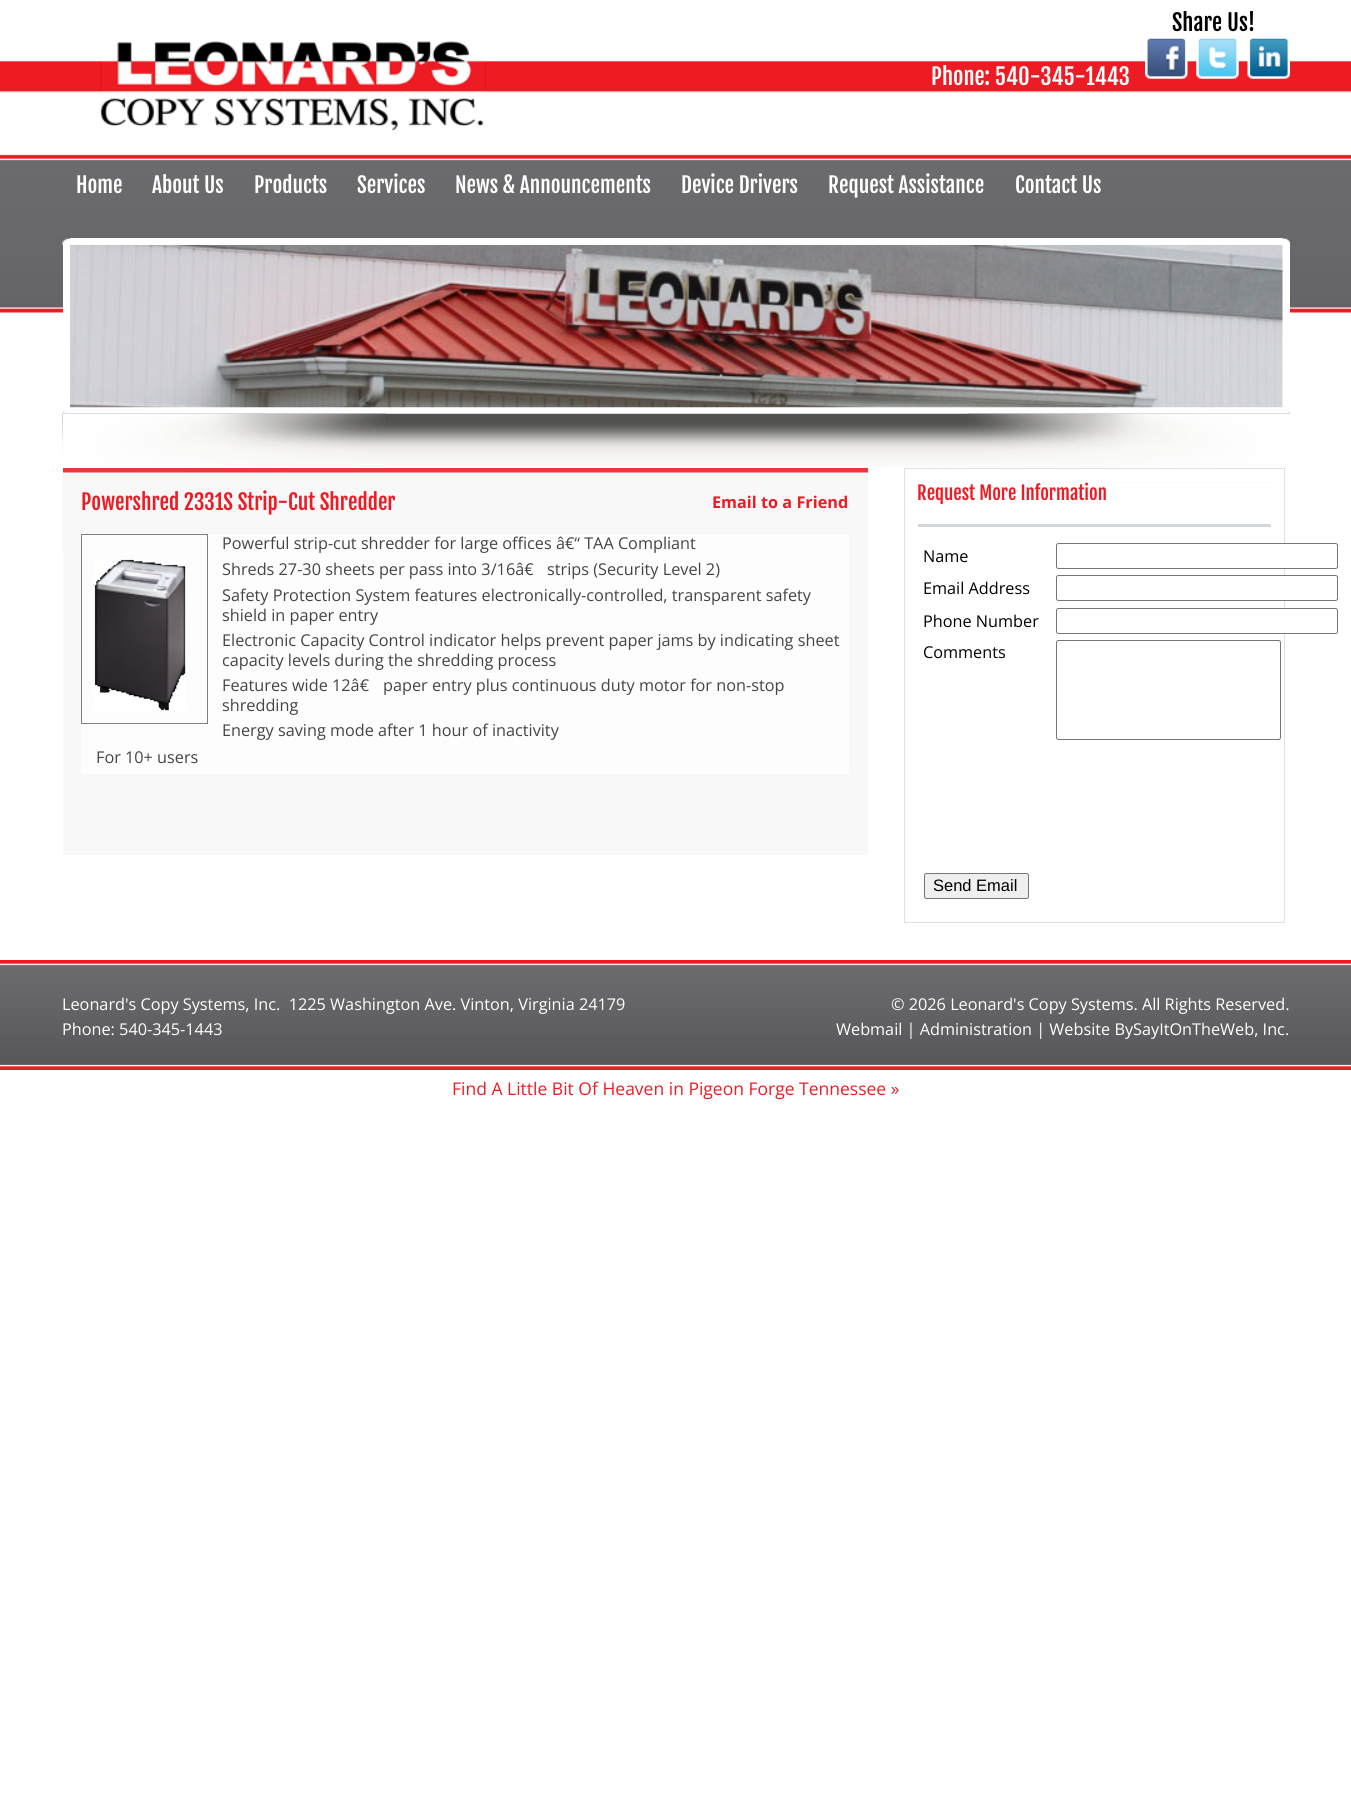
#include <cairo.h>
#include <math.h>
#include <stddef.h>

typedef struct { double x, y; const char *s; } line_t;

static void ink(cairo_t *ctx, unsigned color) {
    cairo_set_source_rgb(ctx, (color >> 16) / 255.0, (color >> 8 & 255) / 255.0, (color & 255) / 255.0);
}

static void round_path(cairo_t *ctx, double x, double y, double w, double h, double r) {
    cairo_new_sub_path(ctx);
    cairo_arc(ctx, x + w - r, y + h - r, r, 0, M_PI / 2);
    cairo_arc(ctx, x + r, y + h - r, r, M_PI / 2, M_PI);
    cairo_arc(ctx, x + r, y + r, r, M_PI, 1.5 * M_PI);
    cairo_arc(ctx, x + w - r, y + r, r, 1.5 * M_PI, 2 * M_PI);
    cairo_close_path(ctx);
}

static void paste(cairo_t *ctx, const char *path, double x, double y, double w, double h) {
    cairo_surface_t *image = cairo_image_surface_create_from_png(path);
    cairo_save(ctx);
    cairo_set_source_surface(ctx, image, x, y);
    cairo_rectangle(ctx, x, y, w, h);
    cairo_fill(ctx);
    cairo_restore(ctx);
    cairo_surface_destroy(image);
}

int main(void) {
    cairo_surface_t *surface = cairo_image_surface_create(CAIRO_FORMAT_RGB24, 1351, 1804);
    cairo_t *ctx = cairo_create(surface);
    cairo_font_options_t *options = cairo_font_options_create();
    cairo_font_options_set_hint_metrics(options, CAIRO_HINT_METRICS_OFF);
    cairo_font_options_set_hint_style(options, CAIRO_HINT_STYLE_NONE);
    cairo_set_font_options(ctx, options);
    cairo_set_miter_limit(ctx, 4);
    ink(ctx, 0xFFFFFF);
    cairo_paint(ctx);
    paste(ctx, "media/1.png", 0, 61, 1351, 252);
    cairo_select_font_face(ctx, "Fjalla One", CAIRO_FONT_SLANT_NORMAL, CAIRO_FONT_WEIGHT_NORMAL);
    cairo_set_font_size(ctx, 22.5);
    ink(ctx, 0x000000);
    cairo_move_to(ctx, 1172, 31);
    cairo_show_text(ctx, "Share Us!");
    paste(ctx, "media/2.png", 1145, 38, 43, 41);
    paste(ctx, "media/3.png", 1196, 38, 43, 41);
    paste(ctx, "media/4.png", 1247, 38, 43, 41);
    paste(ctx, "media/5.png", 100, 41, 387, 90);
    ink(ctx, 0xFFFFFF);
    cairo_move_to(ctx, 931, 85);
    cairo_show_text(ctx, "Phone: 540-345-1443");
    cairo_set_font_size(ctx, 21.25);
    {
        static const line_t items[] = {
            {76, 193, "Home"},
            {152, 193, "About Us"},
            {254, 193, "Products"},
            {357, 193, "Services"},
            {455, 193, "News & Announcements"},
            {681, 193, "Device Drivers"},
            {828, 193, "Request Assistance"},
            {1015, 193, "Contact Us"},
        };
        for (size_t i = 0; i < sizeof items / sizeof *items; i++) {
            cairo_move_to(ctx, items[i].x, items[i].y);
            cairo_show_text(ctx, items[i].s);
        }
    }
    paste(ctx, "media/6.png", 62, 238, 8, 7);
    paste(ctx, "media/7.png", 1283, 238, 7, 7);
    cairo_rectangle(ctx, 70, 238, 1213, 7);
    cairo_fill(ctx);
    cairo_rectangle(ctx, 63, 245, 1227, 68);
    cairo_fill(ctx);
    paste(ctx, "media/8.png", 70, 245, 1213, 163);
    paste(ctx, "media/9.png", 62, 410, 5, 4);
    paste(ctx, "media/10.png", 1286, 410, 4, 4);
    paste(ctx, "media/11.png", 62, 413, 1228, 54);
    paste(ctx, "media/12.png", 62, 413, 325, 54);
    paste(ctx, "media/13.png", 967, 413, 323, 54);
    ink(ctx, 0xEC363C);
    cairo_rectangle(ctx, 63, 468, 805, 5);
    cairo_fill(ctx);
    ink(ctx, 0xF8F8F8);
    cairo_rectangle(ctx, 63, 473, 805, 382);
    cairo_fill(ctx);
    paste(ctx, "media/14.png", 62, 472, 806, 81);
    ink(ctx, 0xED1C24);
    cairo_move_to(ctx, 81, 510);
    cairo_show_text(ctx, "Powershred 2331S Strip-Cut Shredder");
    cairo_select_font_face(ctx, "Open Sans", CAIRO_FONT_SLANT_NORMAL, CAIRO_FONT_WEIGHT_BOLD);
    cairo_set_font_size(ctx, 16.25);
    cairo_move_to(ctx, 712, 508);
    cairo_show_text(ctx, "Email to a Friend");
    ink(ctx, 0xFDFDFD);
    cairo_rectangle(ctx, 81, 534, 768, 240);
    cairo_fill(ctx);
    cairo_rectangle(ctx, 81.5, 534.5, 126, 189);
    ink(ctx, 0x7F7F7F);
    cairo_set_line_width(ctx, 1);
    cairo_stroke(ctx);
    paste(ctx, "media/15.png", 94, 559, 92, 152);
    cairo_select_font_face(ctx, "Open Sans", CAIRO_FONT_SLANT_NORMAL, CAIRO_FONT_WEIGHT_NORMAL);
    ink(ctx, 0x444444);
    {
        static const line_t items[] = {
            {222, 549, "Powerful strip-cut shredder for large offices â€“ TAA Compliant"},
            {222, 575, "Shreds 27-30 sheets per pass into 3/16â€"},
            {547, 575, "strips (Security Level 2)"},
            {222, 601, "Safety Protection System features electronically-controlled, transparent safety"},
            {222, 621, "shield in paper entry"},
            {222, 646, "Electronic Capacity Control indicator helps prevent paper jams by indicating sheet"},
            {222, 666, "capacity levels during the shredding process"},
            {222, 691, "Features wide 12â€"},
            {383, 691, "paper entry plus continuous duty motor for non-stop"},
            {222, 711, "shredding"},
            {222, 736, "Energy saving mode after 1 hour of inactivity"},
            {96, 763, "For 10+ users"},
        };
        for (size_t i = 0; i < sizeof items / sizeof *items; i++) {
            cairo_move_to(ctx, items[i].x, items[i].y);
            cairo_show_text(ctx, items[i].s);
        }
    }
    cairo_rectangle(ctx, 904.5, 468.5, 380, 454);
    ink(ctx, 0xDCE0E7);
    cairo_stroke(ctx);
    ink(ctx, 0xFBFBFA);
    cairo_rectangle(ctx, 918, 482, 353, 1);
    cairo_fill(ctx);
    cairo_select_font_face(ctx, "Fjalla One", CAIRO_FONT_SLANT_NORMAL, CAIRO_FONT_WEIGHT_NORMAL);
    cairo_set_font_size(ctx, 18.75);
    ink(ctx, 0xED1C24);
    cairo_move_to(ctx, 917, 500);
    cairo_show_text(ctx, "Request More Information");
    ink(ctx, 0xD3D6DA);
    cairo_rectangle(ctx, 918, 524, 353, 3);
    cairo_fill(ctx);
    cairo_select_font_face(ctx, "Open Sans", CAIRO_FONT_SLANT_NORMAL, CAIRO_FONT_WEIGHT_NORMAL);
    cairo_set_font_size(ctx, 16.25);
    ink(ctx, 0x000000);
    cairo_move_to(ctx, 923, 562);
    cairo_show_text(ctx, "Name");
    ink(ctx, 0xFFFFFF);
    round_path(ctx, 1056.5, 543.5, 281, 25, 2);
    cairo_fill_preserve(ctx);
    ink(ctx, 0x767676);
    cairo_stroke(ctx);
    ink(ctx, 0x000000);
    cairo_move_to(ctx, 923, 594);
    cairo_show_text(ctx, "Email Address");
    ink(ctx, 0xFFFFFF);
    round_path(ctx, 1056.5, 575.5, 281, 25, 2);
    cairo_fill_preserve(ctx);
    ink(ctx, 0x767676);
    cairo_stroke(ctx);
    ink(ctx, 0x000000);
    cairo_move_to(ctx, 923, 627);
    cairo_show_text(ctx, "Phone Number");
    ink(ctx, 0xFFFFFF);
    round_path(ctx, 1056.5, 608.5, 281, 25, 2);
    cairo_fill_preserve(ctx);
    ink(ctx, 0x767676);
    cairo_stroke(ctx);
    ink(ctx, 0x000000);
    cairo_move_to(ctx, 923, 658);
    cairo_show_text(ctx, "Comments");
    round_path(ctx, 1056.5, 640.5, 224, 99, 2);
    ink(ctx, 0x767676);
    cairo_stroke(ctx);
    ink(ctx, 0xEFEFEF);
    round_path(ctx, 924.5, 873.5, 104, 25, 2);
    cairo_fill_preserve(ctx);
    ink(ctx, 0x767676);
    cairo_stroke(ctx);
    cairo_select_font_face(ctx, "Liberation Sans", CAIRO_FONT_SLANT_NORMAL, CAIRO_FONT_WEIGHT_NORMAL);
    cairo_set_font_size(ctx, 16.5);
    ink(ctx, 0x000000);
    cairo_move_to(ctx, 933, 891);
    cairo_show_text(ctx, "Send Email");
    paste(ctx, "media/16.png", 0, 960, 1351, 110);
    cairo_select_font_face(ctx, "Open Sans", CAIRO_FONT_SLANT_NORMAL, CAIRO_FONT_WEIGHT_NORMAL);
    cairo_set_font_size(ctx, 16.25);
    ink(ctx, 0xFFFFFF);
    {
        static const line_t items[] = {
            {62, 1010, "Leonard's Copy Systems, Inc.  1225 Washington Ave. Vinton, Virginia 24179"},
            {62, 1035, "Phone: 540-345-1443"},
            {891, 1010, "© 2026 Leonard's Copy Systems. All Rights Reserved."},
            {836, 1035, "Webmail | Administration | Website BySayItOnTheWeb, Inc."},
        };
        for (size_t i = 0; i < sizeof items / sizeof *items; i++) {
            cairo_move_to(ctx, items[i].x, items[i].y);
            cairo_show_text(ctx, items[i].s);
        }
    }
    cairo_set_font_size(ctx, 17.5);
    ink(ctx, 0xED1C24);
    cairo_move_to(ctx, 452, 1095);
    cairo_show_text(ctx, "Find A Little Bit Of Heaven in Pigeon Forge Tennessee »");
    cairo_surface_write_to_png(surface, "image.png");
    cairo_font_options_destroy(options);
    cairo_destroy(ctx);
    cairo_surface_destroy(surface);
    return 0;
}
